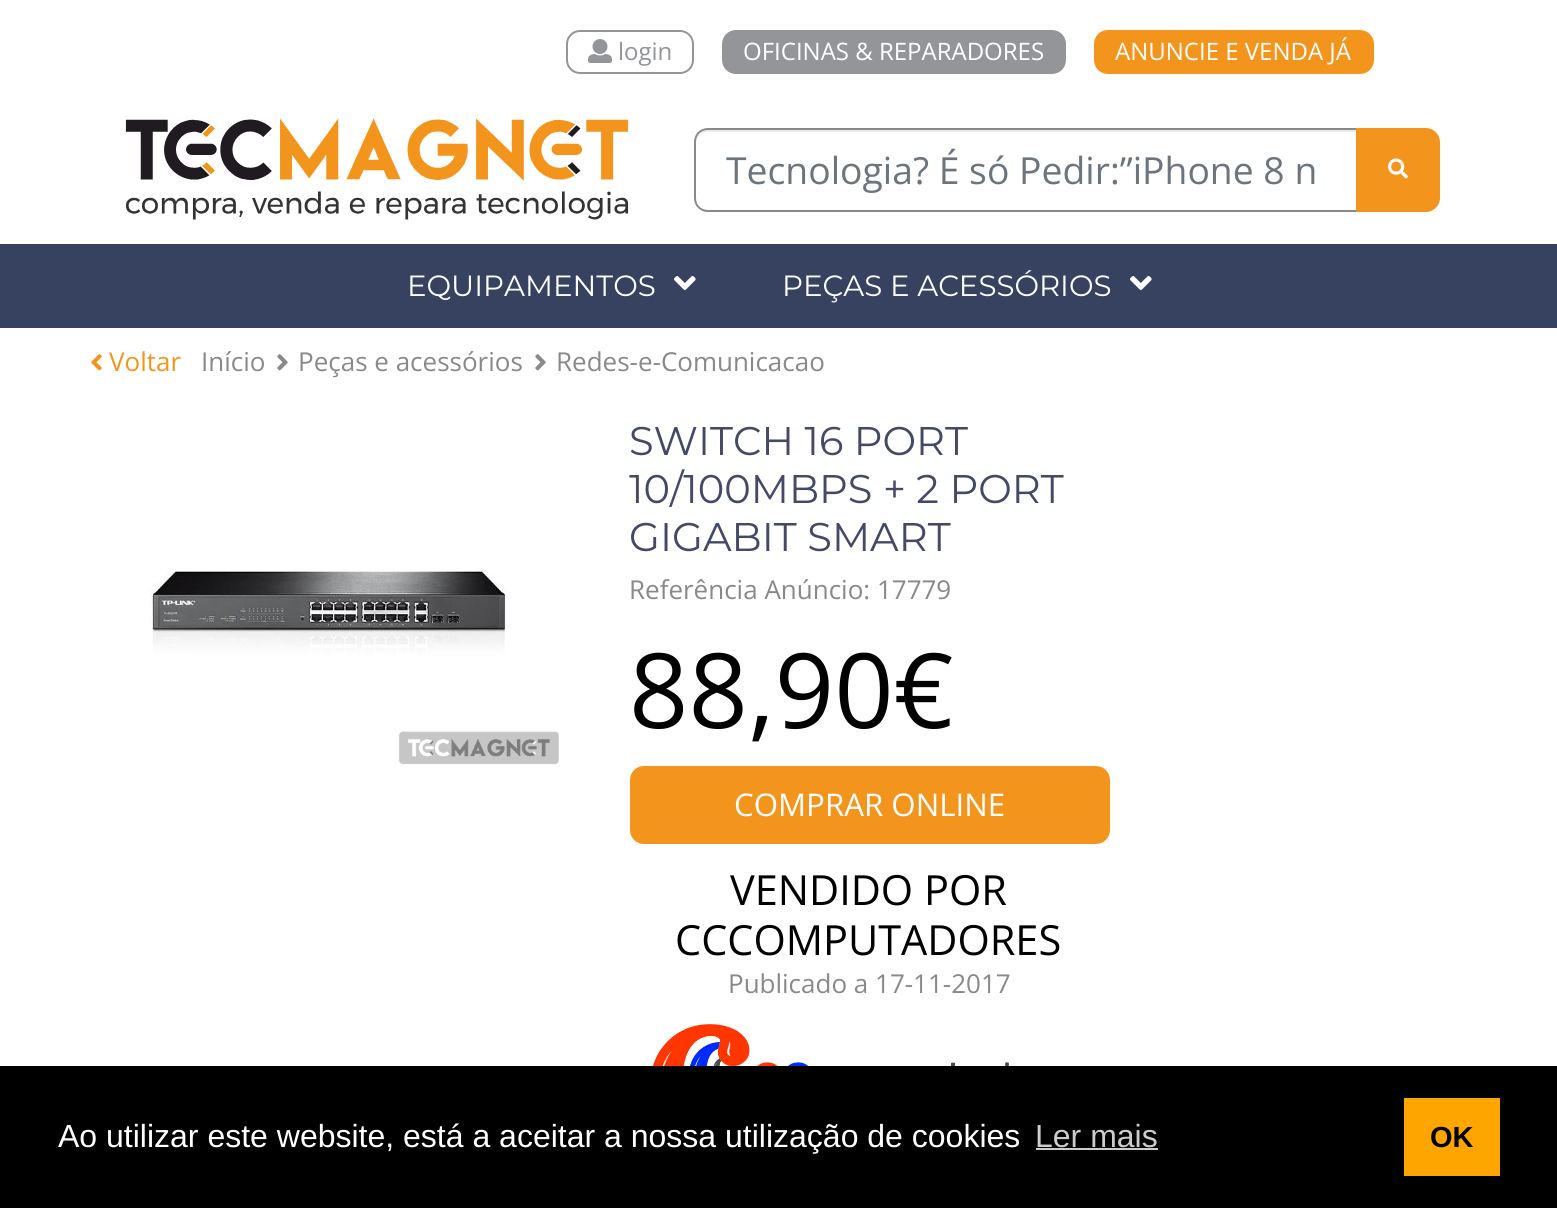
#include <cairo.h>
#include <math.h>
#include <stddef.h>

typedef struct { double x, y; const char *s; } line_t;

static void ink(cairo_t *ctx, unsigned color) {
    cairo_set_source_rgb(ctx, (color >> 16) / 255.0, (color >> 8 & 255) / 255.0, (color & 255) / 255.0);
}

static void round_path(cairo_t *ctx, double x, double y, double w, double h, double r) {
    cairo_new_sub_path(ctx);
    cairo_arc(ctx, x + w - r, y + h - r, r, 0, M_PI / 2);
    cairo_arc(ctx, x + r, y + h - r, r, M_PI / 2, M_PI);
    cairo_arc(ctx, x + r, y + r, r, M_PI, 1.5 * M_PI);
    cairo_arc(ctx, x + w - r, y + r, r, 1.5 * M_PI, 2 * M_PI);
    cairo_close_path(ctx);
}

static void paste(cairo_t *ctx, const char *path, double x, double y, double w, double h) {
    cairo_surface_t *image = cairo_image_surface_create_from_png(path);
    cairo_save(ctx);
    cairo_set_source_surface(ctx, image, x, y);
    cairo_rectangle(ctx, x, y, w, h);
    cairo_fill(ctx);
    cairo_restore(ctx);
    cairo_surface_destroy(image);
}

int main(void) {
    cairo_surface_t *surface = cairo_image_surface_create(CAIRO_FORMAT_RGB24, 1557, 1208);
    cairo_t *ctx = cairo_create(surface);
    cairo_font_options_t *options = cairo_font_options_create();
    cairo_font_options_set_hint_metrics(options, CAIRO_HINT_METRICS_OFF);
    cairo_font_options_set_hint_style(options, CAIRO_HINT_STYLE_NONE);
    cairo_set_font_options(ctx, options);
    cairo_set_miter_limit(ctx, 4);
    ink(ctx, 0xFFFFFF);
    cairo_paint(ctx);
    round_path(ctx, 567, 31, 126, 42, 13);
    ink(ctx, 0x939598);
    cairo_stroke(ctx);
    paste(ctx, "media/1.png", 588, 39, 24, 24);
    cairo_select_font_face(ctx, "Open Sans", CAIRO_FONT_SLANT_NORMAL, CAIRO_FONT_WEIGHT_NORMAL);
    cairo_set_font_size(ctx, 24);
    cairo_move_to(ctx, 618, 60);
    cairo_show_text(ctx, "login");
    round_path(ctx, 723, 31, 342, 42, 13);
    cairo_fill_preserve(ctx);
    cairo_stroke(ctx);
    ink(ctx, 0xFFFFFF);
    cairo_move_to(ctx, 743, 60);
    cairo_show_text(ctx, "OFICINAS & REPARADORES");
    ink(ctx, 0xF3951D);
    round_path(ctx, 1095, 31, 278, 42, 13);
    cairo_fill_preserve(ctx);
    cairo_stroke(ctx);
    ink(ctx, 0xFFFFFF);
    cairo_move_to(ctx, 1115, 60);
    cairo_show_text(ctx, "ANUNCIE E VENDA JÁ");
    paste(ctx, "media/2.png", 125, 118, 504, 102);
    ink(ctx, 0xECECEC);
    cairo_new_path(ctx);
    cairo_move_to(ctx, 708, 132);
    cairo_line_to(ctx, 1356, 132);
    cairo_line_to(ctx, 1356, 130);
    cairo_line_to(ctx, 708, 130);
    cairo_curve_to(ctx, 701, 130, 696, 135, 696, 142);
    cairo_line_to(ctx, 696, 144);
    cairo_curve_to(ctx, 696, 137, 701, 132, 708, 132);
    cairo_close_path(ctx);
    cairo_fill(ctx);
    ink(ctx, 0x898989);
    cairo_set_fill_rule(ctx, CAIRO_FILL_RULE_EVEN_ODD);
    cairo_new_path(ctx);
    cairo_move_to(ctx, 708, 128);
    cairo_line_to(ctx, 1356, 128);
    cairo_line_to(ctx, 1356, 212);
    cairo_line_to(ctx, 708, 212);
    cairo_curve_to(ctx, 700, 212, 694, 206, 694, 198);
    cairo_line_to(ctx, 694, 142);
    cairo_curve_to(ctx, 694, 134, 700, 128, 708, 128);
    cairo_close_path(ctx);
    cairo_move_to(ctx, 708, 130);
    cairo_line_to(ctx, 1356, 130);
    cairo_line_to(ctx, 1356, 210);
    cairo_line_to(ctx, 708, 210);
    cairo_curve_to(ctx, 701, 210, 696, 205, 696, 198);
    cairo_line_to(ctx, 696, 142);
    cairo_curve_to(ctx, 696, 135, 701, 130, 708, 130);
    cairo_close_path(ctx);
    cairo_fill(ctx);
    cairo_set_font_size(ctx, 37.3);
    ink(ctx, 0x6C757D);
    cairo_move_to(ctx, 726, 184);
    cairo_show_text(ctx, "Tecnologia? É só Pedir:”iPhone 8 n");
    ink(ctx, 0xF3951D);
    cairo_new_path(ctx);
    cairo_move_to(ctx, 1356, 128);
    cairo_line_to(ctx, 1426, 128);
    cairo_curve_to(ctx, 1433.5, 128, 1440, 134.5, 1440, 142);
    cairo_line_to(ctx, 1440, 198);
    cairo_curve_to(ctx, 1440, 205.5, 1433.5, 212, 1426, 212);
    cairo_line_to(ctx, 1356, 212);
    cairo_close_path(ctx);
    cairo_fill(ctx);
    paste(ctx, "media/3.png", 1388, 158, 20, 21);
    ink(ctx, 0x36425F);
    cairo_rectangle(ctx, 0, 244, 1557, 84);
    cairo_fill(ctx);
    cairo_select_font_face(ctx, "Montserrat Thin", CAIRO_FONT_SLANT_NORMAL, CAIRO_FONT_WEIGHT_NORMAL);
    cairo_set_font_size(ctx, 29.25);
    ink(ctx, 0xFFFFFF);
    cairo_move_to(ctx, 407, 296);
    cairo_show_text(ctx, "EQUIPAMENTOS");
    paste(ctx, "media/4.png", 674, 276, 22, 14);
    cairo_move_to(ctx, 782, 296);
    cairo_show_text(ctx, "PEÇAS E ACESSÓRIOS");
    paste(ctx, "media/4.png", 1130, 276, 22, 14);
    paste(ctx, "media/5.png", 91, 354, 11, 17);
    cairo_select_font_face(ctx, "Open Sans", CAIRO_FONT_SLANT_NORMAL, CAIRO_FONT_WEIGHT_NORMAL);
    cairo_set_font_size(ctx, 26);
    ink(ctx, 0xF3951D);
    cairo_move_to(ctx, 109, 371);
    cairo_show_text(ctx, "Voltar");
    ink(ctx, 0x898989);
    cairo_move_to(ctx, 201, 371);
    cairo_show_text(ctx, "Início");
    paste(ctx, "media/6.png", 277, 354, 11, 17);
    cairo_move_to(ctx, 298, 371);
    cairo_show_text(ctx, "Peças e acessórios");
    paste(ctx, "media/6.png", 535, 354, 11, 17);
    cairo_move_to(ctx, 556, 371);
    cairo_show_text(ctx, "Redes-e-Comunicacao");
    paste(ctx, "media/7.png", 150, 571, 409, 194);
    cairo_select_font_face(ctx, "Montserrat Thin", CAIRO_FONT_SLANT_NORMAL, CAIRO_FONT_WEIGHT_NORMAL);
    cairo_set_font_size(ctx, 40);
    ink(ctx, 0x444A66);
    {
        static const line_t items[] = {
            {629, 455, "SWITCH 16 PORT"},
            {629, 503, "10/100MBPS + 2 PORT"},
            {629, 551, "GIGABIT SMART"},
        };
        for (size_t i = 0; i < sizeof items / sizeof *items; i++) {
            cairo_move_to(ctx, items[i].x, items[i].y);
            cairo_show_text(ctx, items[i].s);
        }
    }
    cairo_select_font_face(ctx, "Open Sans", CAIRO_FONT_SLANT_NORMAL, CAIRO_FONT_WEIGHT_NORMAL);
    cairo_set_font_size(ctx, 26);
    ink(ctx, 0x898989);
    cairo_move_to(ctx, 629, 599);
    cairo_show_text(ctx, "Referência Anúncio: 17779");
    cairo_set_font_size(ctx, 104);
    ink(ctx, 0x000000);
    cairo_move_to(ctx, 629, 728);
    cairo_show_text(ctx, "88,90€");
    ink(ctx, 0xF3951D);
    round_path(ctx, 630, 766, 480, 78, 14);
    cairo_fill(ctx);
    cairo_set_font_size(ctx, 31.25);
    ink(ctx, 0xFFFFFF);
    cairo_move_to(ctx, 734, 816);
    cairo_show_text(ctx, "COMPRAR ONLINE");
    cairo_set_font_size(ctx, 41.5);
    ink(ctx, 0x000000);
    cairo_move_to(ctx, 730, 905);
    cairo_show_text(ctx, "VENDIDO POR");
    cairo_move_to(ctx, 675, 955);
    cairo_show_text(ctx, "CCCOMPUTADORES");
    cairo_set_font_size(ctx, 26);
    ink(ctx, 0x898989);
    cairo_move_to(ctx, 728, 993);
    cairo_show_text(ctx, "Publicado a 17-11-2017");
    paste(ctx, "media/8.png", 652, 1024, 357, 42);
    ink(ctx, 0x000000);
    cairo_rectangle(ctx, 0, 1066, 1557, 142);
    cairo_fill(ctx);
    cairo_select_font_face(ctx, "Liberation Sans", CAIRO_FONT_SLANT_NORMAL, CAIRO_FONT_WEIGHT_NORMAL);
    cairo_set_font_size(ctx, 32);
    ink(ctx, 0xFFFFFF);
    cairo_move_to(ctx, 58, 1147);
    cairo_show_text(ctx, "Ao utilizar este website, está a aceitar a nossa utilização de cookies");
    ink(ctx, 0xCCCCCC);
    cairo_move_to(ctx, 1035, 1147);
    cairo_show_text(ctx, "Ler mais");
    cairo_rectangle(ctx, 1036, 1148, 122, 2);
    cairo_fill(ctx);
    ink(ctx, 0xFFA500);
    cairo_rectangle(ctx, 1404, 1098, 96, 78);
    cairo_fill(ctx);
    cairo_select_font_face(ctx, "Liberation Sans", CAIRO_FONT_SLANT_NORMAL, CAIRO_FONT_WEIGHT_BOLD);
    cairo_set_font_size(ctx, 29);
    ink(ctx, 0x000000);
    cairo_move_to(ctx, 1430, 1147);
    cairo_show_text(ctx, "OK");
    cairo_surface_write_to_png(surface, "image.png");
    cairo_font_options_destroy(options);
    cairo_destroy(ctx);
    cairo_surface_destroy(surface);
    return 0;
}
